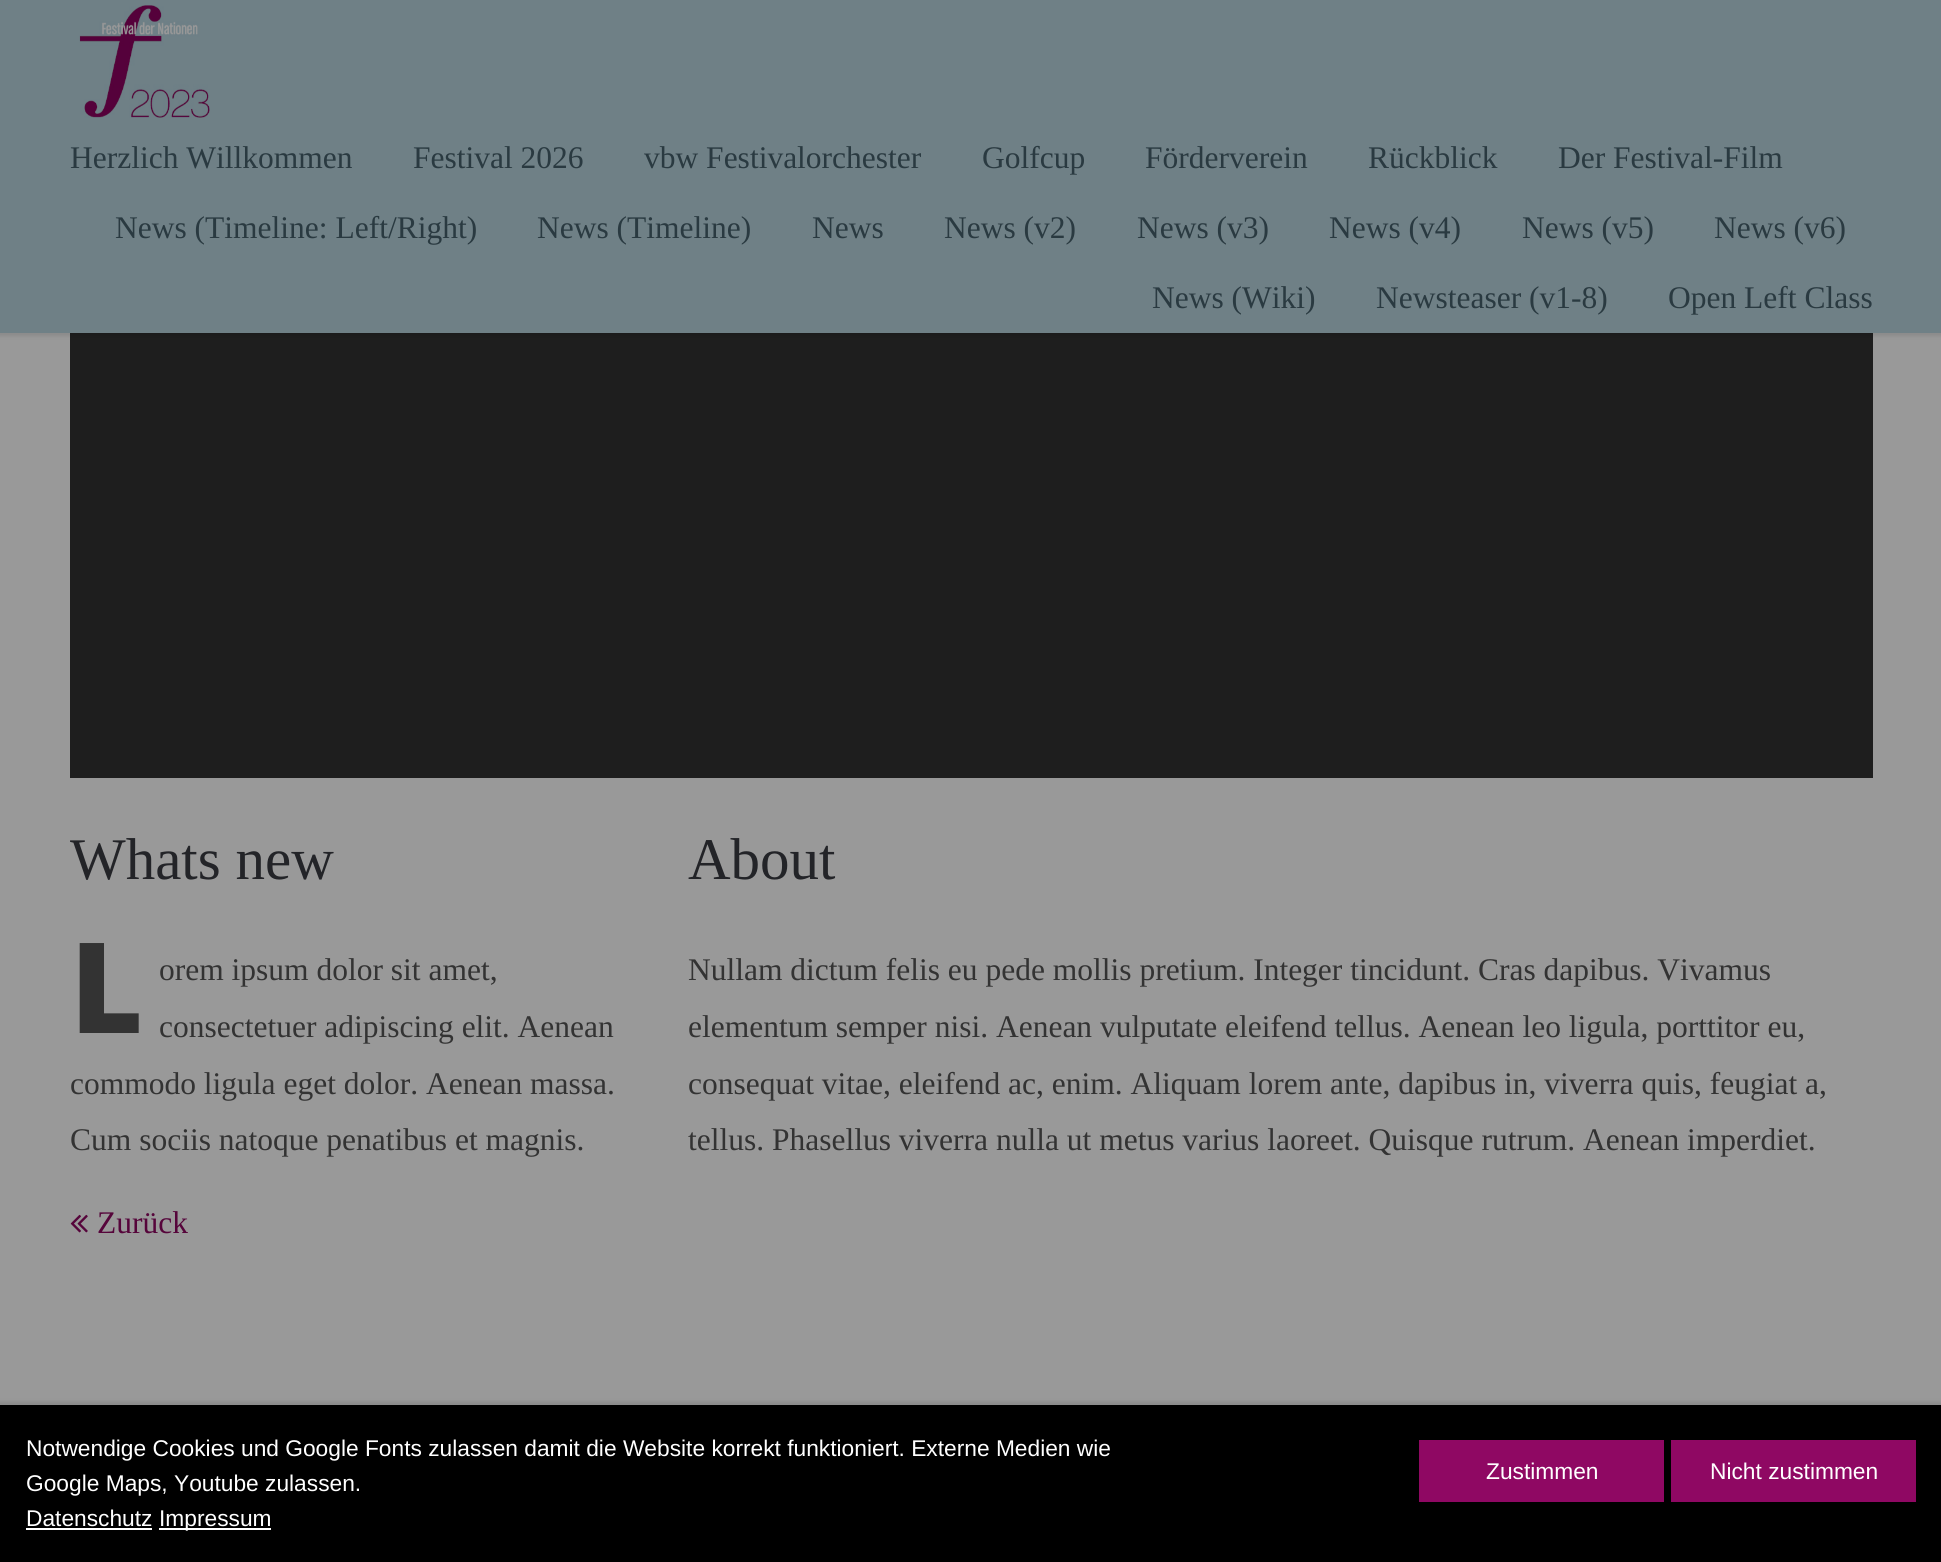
#include <cairo.h>
#include <math.h>
#include <stddef.h>

typedef struct { double x, y; const char *s; } line_t;

static void ink(cairo_t *ctx, unsigned color) {
    cairo_set_source_rgb(ctx, (color >> 16) / 255.0, (color >> 8 & 255) / 255.0, (color & 255) / 255.0);
}

static void round_path(cairo_t *ctx, double x, double y, double w, double h, double r) {
    cairo_new_sub_path(ctx);
    cairo_arc(ctx, x + w - r, y + h - r, r, 0, M_PI / 2);
    cairo_arc(ctx, x + r, y + h - r, r, M_PI / 2, M_PI);
    cairo_arc(ctx, x + r, y + r, r, M_PI, 1.5 * M_PI);
    cairo_arc(ctx, x + w - r, y + r, r, 1.5 * M_PI, 2 * M_PI);
    cairo_close_path(ctx);
}

static void blur_box(cairo_t *ctx, double x, double y, double w, double h, double r, double blur, double alpha) {
    cairo_push_group_with_content(ctx, CAIRO_CONTENT_ALPHA);
    cairo_set_operator(ctx, CAIRO_OPERATOR_SOURCE);
    for (int i = 15; i >= -15 && fmin(w, h) + blur * i / 3 > 0; i -= 2) {
        double e = blur * i / 6;
        cairo_set_source_rgba(ctx, 0, 0, 0, alpha * erfc((i - 1) / 8.5) / 2);
        round_path(ctx, x - e, y - e, w + 2 * e, h + 2 * e, fmax(0, fmin(r + e + blur * .6, fmin(w, h) / 2 + e)));
        cairo_fill(ctx);
    }
    cairo_pattern_t *soft = cairo_pop_group(ctx);
    cairo_mask(ctx, soft);
    cairo_pattern_destroy(soft);
}

static void paste(cairo_t *ctx, const char *path, double x, double y, double w, double h) {
    cairo_surface_t *image = cairo_image_surface_create_from_png(path);
    cairo_save(ctx);
    cairo_set_source_surface(ctx, image, x, y);
    cairo_rectangle(ctx, x, y, w, h);
    cairo_fill(ctx);
    cairo_restore(ctx);
    cairo_surface_destroy(image);
}

int main(void) {
    cairo_surface_t *surface = cairo_image_surface_create(CAIRO_FORMAT_RGB24, 1941, 1562);
    cairo_t *ctx = cairo_create(surface);
    cairo_font_options_t *options = cairo_font_options_create();
    cairo_font_options_set_hint_metrics(options, CAIRO_HINT_METRICS_OFF);
    cairo_font_options_set_hint_style(options, CAIRO_HINT_STYLE_NONE);
    cairo_set_font_options(ctx, options);
    cairo_set_miter_limit(ctx, 4);
    ink(ctx, 0x999999);
    cairo_paint(ctx);
    ink(ctx, 0x1E1E1E);
    cairo_rectangle(ctx, 70, 333, 1803, 445);
    cairo_fill(ctx);
    ink(ctx, 0x000000);
    blur_box(ctx, -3, -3, 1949, 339, 0, 2, 0.1);
    ink(ctx, 0x6F8086);
    cairo_rectangle(ctx, 0, 0, 1941, 333);
    cairo_fill(ctx);
    paste(ctx, "media/1.png", 79, 5, 131, 113);
    cairo_select_font_face(ctx, "Liberation Serif", CAIRO_FONT_SLANT_NORMAL, CAIRO_FONT_WEIGHT_NORMAL);
    cairo_set_font_size(ctx, 31.5);
    ink(ctx, 0x2A3A41);
    {
        static const line_t items[] = {
            {70, 168, "Herzlich Willkommen"},
            {413, 168, "Festival 2026"},
            {644, 168, "vbw Festivalorchester"},
            {982, 168, "Golfcup"},
            {1145, 168, "Förderverein"},
            {1368, 168, "Rückblick"},
            {1558, 168, "Der Festival-Film"},
            {115, 238, "News (Timeline: Left/Right)"},
            {537, 238, "News (Timeline)"},
            {812, 238, "News"},
            {944, 238, "News (v2)"},
            {1137, 238, "News (v3)"},
            {1329, 238, "News (v4)"},
            {1522, 238, "News (v5)"},
            {1714, 238, "News (v6)"},
            {1152, 308, "News (Wiki)"},
            {1376, 308, "Newsteaser (v1-8)"},
            {1668, 308, "Open Left Class"},
        };
        for (size_t i = 0; i < sizeof items / sizeof *items; i++) {
            cairo_move_to(ctx, items[i].x, items[i].y);
            cairo_show_text(ctx, items[i].s);
        }
    }
    cairo_set_font_size(ctx, 59);
    ink(ctx, 0x232428);
    cairo_move_to(ctx, 70, 879);
    cairo_show_text(ctx, "Whats new");
    cairo_select_font_face(ctx, "Noto Sans Black", CAIRO_FONT_SLANT_NORMAL, CAIRO_FONT_WEIGHT_NORMAL);
    cairo_set_font_size(ctx, 126);
    ink(ctx, 0x333333);
    cairo_move_to(ctx, 70, 1033);
    cairo_show_text(ctx, "L");
    cairo_select_font_face(ctx, "Liberation Serif", CAIRO_FONT_SLANT_NORMAL, CAIRO_FONT_WEIGHT_NORMAL);
    cairo_set_font_size(ctx, 31.5);
    {
        static const line_t items[] = {
            {159, 980, "orem ipsum dolor sit amet,"},
            {159, 1037, "consectetuer adipiscing elit. Aenean"},
            {70, 1094, "commodo ligula eget dolor. Aenean massa."},
            {70, 1150, "Cum sociis natoque penatibus et magnis."},
        };
        for (size_t i = 0; i < sizeof items / sizeof *items; i++) {
            cairo_move_to(ctx, items[i].x, items[i].y);
            cairo_show_text(ctx, items[i].s);
        }
    }
    cairo_set_font_size(ctx, 59);
    ink(ctx, 0x232428);
    cairo_move_to(ctx, 688, 879);
    cairo_show_text(ctx, "About");
    cairo_set_font_size(ctx, 31.5);
    ink(ctx, 0x333333);
    {
        static const line_t items[] = {
            {688, 980, "Nullam dictum felis eu pede mollis pretium. Integer tincidunt. Cras dapibus. Vivamus"},
            {688, 1037, "elementum semper nisi. Aenean vulputate eleifend tellus. Aenean leo ligula, porttitor eu,"},
            {688, 1094, "consequat vitae, eleifend ac, enim. Aliquam lorem ante, dapibus in, viverra quis, feugiat a,"},
            {688, 1150, "tellus. Phasellus viverra nulla ut metus varius laoreet. Quisque rutrum. Aenean imperdiet."},
        };
        for (size_t i = 0; i < sizeof items / sizeof *items; i++) {
            cairo_move_to(ctx, items[i].x, items[i].y);
            cairo_show_text(ctx, items[i].s);
        }
    }
    paste(ctx, "media/2.png", 70, 1214, 18, 19);
    ink(ctx, 0x56053B);
    cairo_move_to(ctx, 97, 1233);
    cairo_show_text(ctx, "Zurück");
    ink(ctx, 0x000000);
    blur_box(ctx, -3, 1402, 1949, 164, 0, 2, 0.1);
    ink(ctx, 0x000000);
    cairo_rectangle(ctx, 0, 1405, 1941, 157);
    cairo_fill(ctx);
    cairo_select_font_face(ctx, "Liberation Sans", CAIRO_FONT_SLANT_NORMAL, CAIRO_FONT_WEIGHT_NORMAL);
    cairo_set_font_size(ctx, 22.75);
    ink(ctx, 0xFFFFFF);
    {
        static const line_t items[] = {
            {26, 1456, "Notwendige Cookies und Google Fonts zulassen damit die Website korrekt funktioniert. Externe Medien wie"},
            {26, 1491, "Google Maps, Youtube zulassen."},
            {26, 1526, "Datenschutz"},
        };
        for (size_t i = 0; i < sizeof items / sizeof *items; i++) {
            cairo_move_to(ctx, items[i].x, items[i].y);
            cairo_show_text(ctx, items[i].s);
        }
    }
    cairo_rectangle(ctx, 26, 1528, 126, 2);
    cairo_fill(ctx);
    cairo_rectangle(ctx, 159, 1528, 112, 2);
    cairo_fill(ctx);
    cairo_move_to(ctx, 159, 1526);
    cairo_show_text(ctx, "Impressum");
    ink(ctx, 0x8F0863);
    cairo_rectangle(ctx, 1419, 1440, 245, 62);
    cairo_fill(ctx);
    ink(ctx, 0xFFFFFF);
    cairo_move_to(ctx, 1486, 1479);
    cairo_show_text(ctx, "Zustimmen");
    ink(ctx, 0x8F0863);
    cairo_rectangle(ctx, 1671, 1440, 245, 62);
    cairo_fill(ctx);
    ink(ctx, 0xFFFFFF);
    cairo_move_to(ctx, 1710, 1479);
    cairo_show_text(ctx, "Nicht zustimmen");
    cairo_surface_write_to_png(surface, "image.png");
    cairo_font_options_destroy(options);
    cairo_destroy(ctx);
    cairo_surface_destroy(surface);
    return 0;
}
